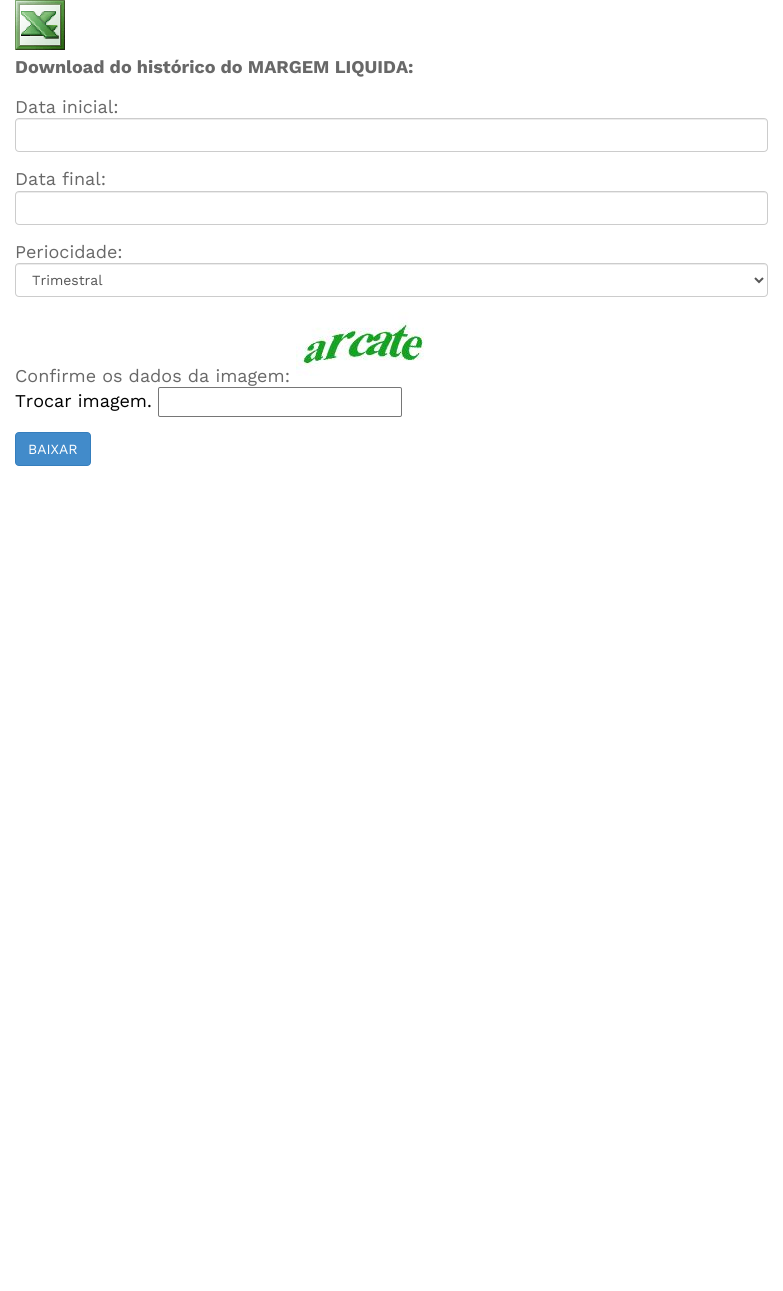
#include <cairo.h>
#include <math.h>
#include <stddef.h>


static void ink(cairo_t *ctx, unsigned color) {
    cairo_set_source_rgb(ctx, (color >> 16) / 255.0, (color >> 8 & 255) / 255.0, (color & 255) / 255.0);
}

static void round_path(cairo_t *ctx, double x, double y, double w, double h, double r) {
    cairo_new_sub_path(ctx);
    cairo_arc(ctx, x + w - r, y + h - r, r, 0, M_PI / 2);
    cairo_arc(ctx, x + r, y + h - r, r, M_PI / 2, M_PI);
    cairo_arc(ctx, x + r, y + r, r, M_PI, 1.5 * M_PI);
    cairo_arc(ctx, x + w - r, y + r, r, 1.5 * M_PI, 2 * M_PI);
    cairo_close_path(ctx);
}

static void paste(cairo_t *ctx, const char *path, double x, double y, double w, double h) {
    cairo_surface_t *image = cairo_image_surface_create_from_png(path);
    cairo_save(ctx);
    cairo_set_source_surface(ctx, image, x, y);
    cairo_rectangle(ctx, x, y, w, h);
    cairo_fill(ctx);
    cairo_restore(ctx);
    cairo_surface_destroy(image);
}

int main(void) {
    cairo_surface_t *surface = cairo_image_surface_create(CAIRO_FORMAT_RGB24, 783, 1291);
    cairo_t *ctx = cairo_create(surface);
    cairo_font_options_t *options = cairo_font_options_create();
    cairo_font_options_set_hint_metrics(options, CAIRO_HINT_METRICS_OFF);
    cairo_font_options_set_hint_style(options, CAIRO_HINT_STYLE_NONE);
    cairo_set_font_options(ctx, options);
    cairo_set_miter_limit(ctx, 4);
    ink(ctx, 0xFFFFFF);
    cairo_paint(ctx);
    paste(ctx, "media/1.png", 15, 0, 50, 50);
    cairo_select_font_face(ctx, "Work Sans", CAIRO_FONT_SLANT_NORMAL, CAIRO_FONT_WEIGHT_BOLD);
    cairo_set_font_size(ctx, 18);
    ink(ctx, 0x686868);
    cairo_move_to(ctx, 15, 73);
    cairo_show_text(ctx, "Download do histórico do MARGEM LIQUIDA:");
    cairo_select_font_face(ctx, "Work Sans", CAIRO_FONT_SLANT_NORMAL, CAIRO_FONT_WEIGHT_NORMAL);
    cairo_move_to(ctx, 15, 113);
    cairo_show_text(ctx, "Data inicial:");
    ink(ctx, 0xECECEC);
    cairo_new_path(ctx);
    cairo_move_to(ctx, 19, 120);
    cairo_line_to(ctx, 764, 120);
    cairo_curve_to(ctx, 766, 120, 767, 121, 767, 123);
    cairo_curve_to(ctx, 767, 121, 766, 119, 764, 119);
    cairo_line_to(ctx, 19, 119);
    cairo_curve_to(ctx, 17, 119, 16, 121, 16, 123);
    cairo_curve_to(ctx, 16, 121, 17, 120, 19, 120);
    cairo_close_path(ctx);
    cairo_fill(ctx);
    round_path(ctx, 15.5, 118.5, 752, 33, 3.5);
    ink(ctx, 0xCCCCCC);
    cairo_set_line_width(ctx, 1);
    cairo_stroke(ctx);
    ink(ctx, 0x686868);
    cairo_move_to(ctx, 15, 185);
    cairo_show_text(ctx, "Data final:");
    ink(ctx, 0xECECEC);
    cairo_new_path(ctx);
    cairo_move_to(ctx, 19, 193);
    cairo_line_to(ctx, 764, 193);
    cairo_curve_to(ctx, 766, 193, 767, 194, 767, 196);
    cairo_curve_to(ctx, 767, 194, 766, 192, 764, 192);
    cairo_line_to(ctx, 19, 192);
    cairo_curve_to(ctx, 17, 192, 16, 194, 16, 196);
    cairo_curve_to(ctx, 16, 194, 17, 193, 19, 193);
    cairo_close_path(ctx);
    cairo_fill(ctx);
    round_path(ctx, 15.5, 191.5, 752, 33, 3.5);
    ink(ctx, 0xCCCCCC);
    cairo_stroke(ctx);
    ink(ctx, 0x686868);
    cairo_move_to(ctx, 15, 258);
    cairo_show_text(ctx, "Periocidade:");
    ink(ctx, 0xECECEC);
    cairo_new_path(ctx);
    cairo_move_to(ctx, 19, 265);
    cairo_line_to(ctx, 764, 265);
    cairo_curve_to(ctx, 766, 265, 767, 266, 767, 268);
    cairo_curve_to(ctx, 767, 266, 766, 264, 764, 264);
    cairo_line_to(ctx, 19, 264);
    cairo_curve_to(ctx, 17, 264, 16, 266, 16, 268);
    cairo_curve_to(ctx, 16, 266, 17, 265, 19, 265);
    cairo_close_path(ctx);
    cairo_fill(ctx);
    round_path(ctx, 15.5, 263.5, 752, 33, 3.5);
    ink(ctx, 0xCCCCCC);
    cairo_stroke(ctx);
    cairo_new_path(ctx);
    cairo_move_to(ctx, 755, 278);
    cairo_line_to(ctx, 759, 282);
    cairo_line_to(ctx, 763, 278);
    ink(ctx, 0x555555);
    cairo_set_line_width(ctx, 2);
    cairo_stroke(ctx);
    cairo_set_font_size(ctx, 14);
    cairo_move_to(ctx, 32, 285);
    cairo_show_text(ctx, "Trimestral");
    cairo_set_font_size(ctx, 18);
    ink(ctx, 0x686868);
    cairo_move_to(ctx, 15, 382);
    cairo_show_text(ctx, "Confirme os dados da imagem:");
    paste(ctx, "media/2.png", 296, 312, 128, 64);
    ink(ctx, 0x000000);
    cairo_move_to(ctx, 15, 407);
    cairo_show_text(ctx, "Trocar imagem.");
    round_path(ctx, 158.5, 387.5, 243, 29, 1.5);
    ink(ctx, 0x767676);
    cairo_set_line_width(ctx, 1);
    cairo_stroke(ctx);
    ink(ctx, 0x428BCA);
    round_path(ctx, 15.5, 432.5, 75, 33, 3.5);
    cairo_fill_preserve(ctx);
    ink(ctx, 0x357EBD);
    cairo_stroke(ctx);
    cairo_set_font_size(ctx, 14);
    ink(ctx, 0xFFFFFF);
    cairo_move_to(ctx, 28, 454);
    cairo_show_text(ctx, "BAIXAR");
    cairo_surface_write_to_png(surface, "image.png");
    cairo_font_options_destroy(options);
    cairo_destroy(ctx);
    cairo_surface_destroy(surface);
    return 0;
}
